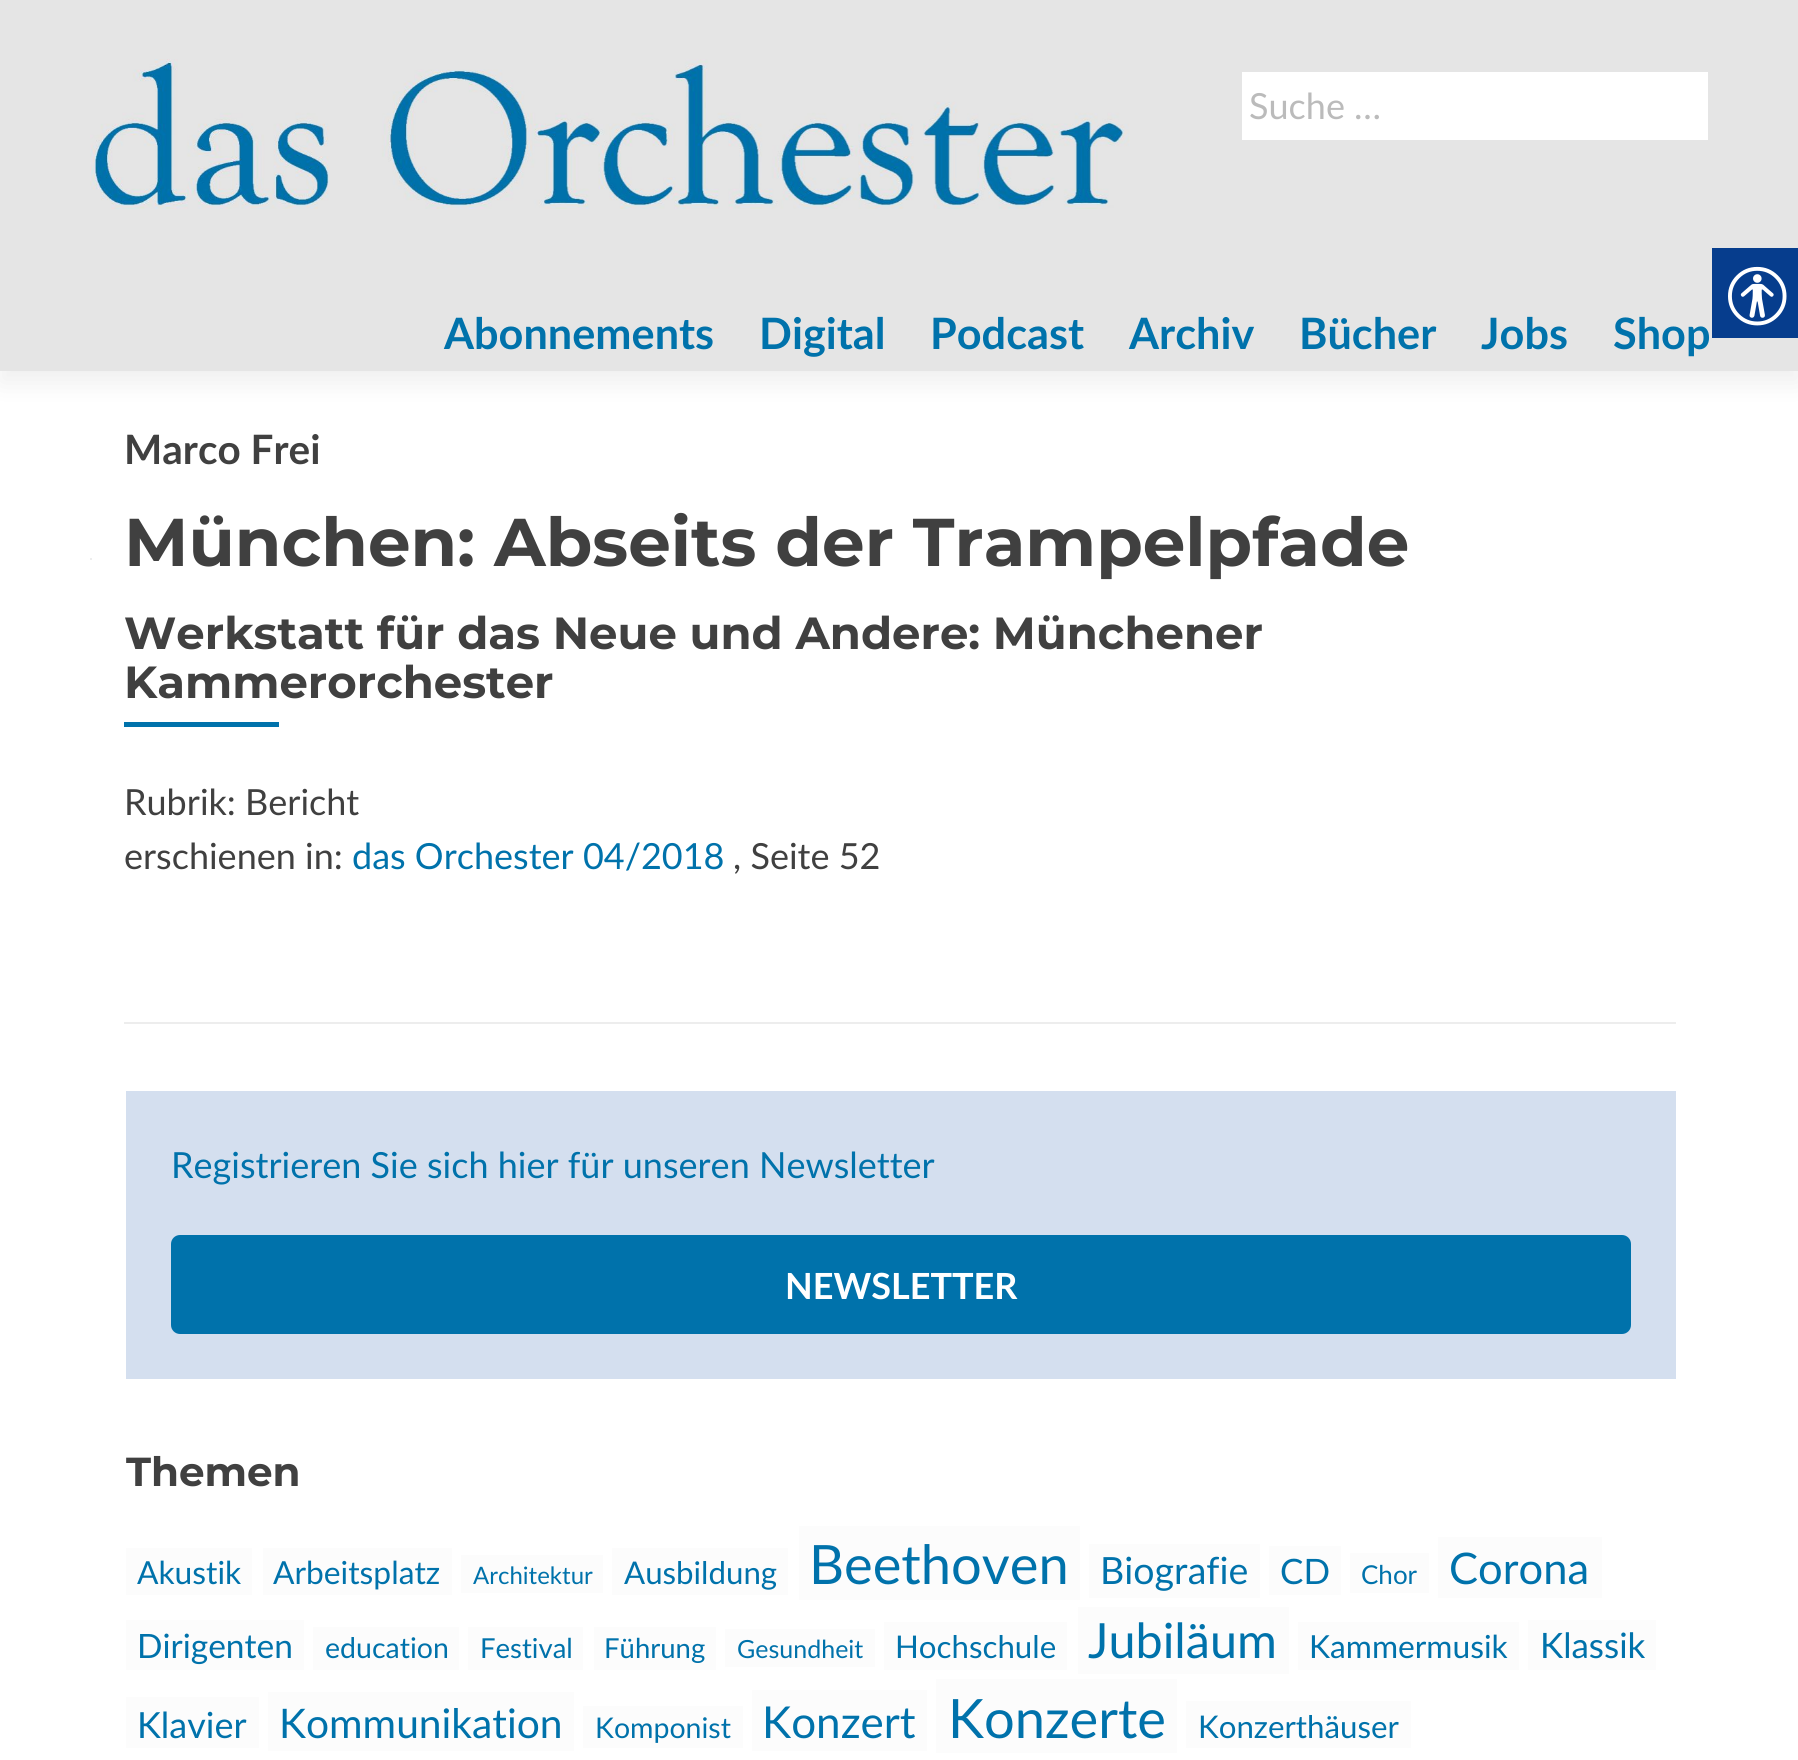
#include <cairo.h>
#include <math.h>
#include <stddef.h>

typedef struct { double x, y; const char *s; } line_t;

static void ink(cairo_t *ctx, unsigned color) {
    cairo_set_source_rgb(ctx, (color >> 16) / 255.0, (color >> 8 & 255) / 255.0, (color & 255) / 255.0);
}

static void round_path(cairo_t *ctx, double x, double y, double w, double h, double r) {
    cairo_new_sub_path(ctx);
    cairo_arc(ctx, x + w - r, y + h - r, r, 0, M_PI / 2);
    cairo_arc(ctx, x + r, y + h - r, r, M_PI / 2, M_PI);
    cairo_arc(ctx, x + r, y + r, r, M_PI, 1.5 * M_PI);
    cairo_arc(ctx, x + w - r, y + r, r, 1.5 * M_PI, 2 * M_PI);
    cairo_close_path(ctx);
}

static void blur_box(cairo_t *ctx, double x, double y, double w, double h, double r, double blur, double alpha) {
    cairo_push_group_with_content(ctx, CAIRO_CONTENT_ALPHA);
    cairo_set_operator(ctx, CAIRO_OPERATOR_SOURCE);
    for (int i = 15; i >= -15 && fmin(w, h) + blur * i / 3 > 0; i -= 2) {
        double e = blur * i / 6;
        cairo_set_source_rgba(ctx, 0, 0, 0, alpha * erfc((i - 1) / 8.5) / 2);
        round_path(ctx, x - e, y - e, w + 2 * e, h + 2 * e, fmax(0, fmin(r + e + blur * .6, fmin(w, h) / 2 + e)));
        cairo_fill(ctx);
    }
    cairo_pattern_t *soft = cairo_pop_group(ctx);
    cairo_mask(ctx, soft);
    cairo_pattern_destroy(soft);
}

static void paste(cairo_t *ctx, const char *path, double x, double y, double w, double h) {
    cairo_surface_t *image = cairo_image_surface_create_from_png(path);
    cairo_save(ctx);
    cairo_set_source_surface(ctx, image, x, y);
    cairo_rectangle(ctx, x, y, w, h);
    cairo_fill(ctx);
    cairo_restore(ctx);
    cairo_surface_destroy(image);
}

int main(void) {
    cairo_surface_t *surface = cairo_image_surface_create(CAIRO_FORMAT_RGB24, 1798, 1760);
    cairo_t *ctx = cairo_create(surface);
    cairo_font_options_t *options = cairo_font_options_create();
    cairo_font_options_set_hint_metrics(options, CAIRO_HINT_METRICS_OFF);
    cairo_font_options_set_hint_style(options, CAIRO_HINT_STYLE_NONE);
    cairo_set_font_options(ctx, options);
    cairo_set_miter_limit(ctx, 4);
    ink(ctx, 0xFFFFFF);
    cairo_paint(ctx);
    ink(ctx, 0x323232);
    blur_box(ctx, 0, 11, 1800, 372, 0, 12.5, 0.08);
    ink(ctx, 0xE5E5E5);
    cairo_rectangle(ctx, 0, 0, 1798, 371);
    cairo_fill(ctx);
    paste(ctx, "media/1.png", 90, 59, 1040, 150);
    ink(ctx, 0xFFFFFF);
    cairo_rectangle(ctx, 1242, 72, 466, 68);
    cairo_fill(ctx);
    cairo_select_font_face(ctx, "Lato", CAIRO_FONT_SLANT_NORMAL, CAIRO_FONT_WEIGHT_NORMAL);
    cairo_set_font_size(ctx, 36);
    ink(ctx, 0xBBBBBB);
    cairo_move_to(ctx, 1249, 119);
    cairo_show_text(ctx, "Suche …");
    cairo_select_font_face(ctx, "Lato", CAIRO_FONT_SLANT_NORMAL, CAIRO_FONT_WEIGHT_BOLD);
    cairo_set_font_size(ctx, 43.25);
    ink(ctx, 0x0072AB);
    {
        static const line_t items[] = {
            {444, 349, "Abonnements"},
            {759, 349, "Digital"},
            {930, 349, "Podcast"},
            {1129, 349, "Archiv"},
            {1299, 349, "Bücher"},
            {1481, 349, "Jobs"},
            {1613, 349, "Shop"},
        };
        for (size_t i = 0; i < sizeof items / sizeof *items; i++) {
            cairo_move_to(ctx, items[i].x, items[i].y);
            cairo_show_text(ctx, items[i].s);
        }
    }
    ink(ctx, 0xEDEDED);
    cairo_rectangle(ctx, 124, 1022, 1552, 2);
    cairo_fill(ctx);
    cairo_set_font_size(ctx, 40.5);
    ink(ctx, 0x404040);
    cairo_move_to(ctx, 124, 464);
    cairo_show_text(ctx, "Marco Frei");
    cairo_select_font_face(ctx, "Montserrat", CAIRO_FONT_SLANT_NORMAL, CAIRO_FONT_WEIGHT_BOLD);
    cairo_set_font_size(ctx, 67.5);
    cairo_move_to(ctx, 124, 566);
    cairo_show_text(ctx, "München: Abseits der Trampelpfade");
    cairo_set_font_size(ctx, 45);
    cairo_move_to(ctx, 124, 649);
    cairo_show_text(ctx, "Werkstatt für das Neue und Andere: Münchener");
    cairo_move_to(ctx, 124, 698);
    cairo_show_text(ctx, "Kammerorchester");
    ink(ctx, 0x0072AB);
    cairo_rectangle(ctx, 124, 722, 155, 5);
    cairo_fill(ctx);
    cairo_select_font_face(ctx, "Lato", CAIRO_FONT_SLANT_NORMAL, CAIRO_FONT_WEIGHT_NORMAL);
    cairo_set_font_size(ctx, 36);
    ink(ctx, 0x404040);
    cairo_move_to(ctx, 124, 815);
    cairo_show_text(ctx, "Rubrik: Bericht");
    cairo_move_to(ctx, 124, 869);
    cairo_show_text(ctx, "erschienen in:");
    ink(ctx, 0x0072AB);
    cairo_move_to(ctx, 352, 869);
    cairo_show_text(ctx, "das Orchester 04/2018");
    ink(ctx, 0x404040);
    cairo_move_to(ctx, 733, 869);
    cairo_show_text(ctx, ", Seite 52");
    ink(ctx, 0xEDEDED);
    cairo_rectangle(ctx, 90, 558, 2, 2);
    cairo_fill(ctx);
    ink(ctx, 0xD4DFEF);
    cairo_rectangle(ctx, 126, 1091, 1550, 288);
    cairo_fill(ctx);
    ink(ctx, 0x0072AB);
    cairo_move_to(ctx, 171, 1178);
    cairo_show_text(ctx, "Registrieren Sie sich hier für unseren Newsletter");
    round_path(ctx, 171, 1235, 1460, 99, 9);
    cairo_fill(ctx);
    cairo_select_font_face(ctx, "Lato", CAIRO_FONT_SLANT_NORMAL, CAIRO_FONT_WEIGHT_BOLD);
    ink(ctx, 0xFFFFFF);
    cairo_move_to(ctx, 785, 1299);
    cairo_show_text(ctx, "NEWSLETTER");
    cairo_select_font_face(ctx, "Montserrat", CAIRO_FONT_SLANT_NORMAL, CAIRO_FONT_WEIGHT_BOLD);
    cairo_set_font_size(ctx, 40.5);
    ink(ctx, 0x404040);
    cairo_move_to(ctx, 126, 1486);
    cairo_show_text(ctx, "Themen");
    ink(ctx, 0xFCFCFC);
    cairo_rectangle(ctx, 126, 1548, 126, 47);
    cairo_fill(ctx);
    cairo_select_font_face(ctx, "Lato", CAIRO_FONT_SLANT_NORMAL, CAIRO_FONT_WEIGHT_NORMAL);
    cairo_set_font_size(ctx, 31.75);
    ink(ctx, 0x0072AB);
    cairo_move_to(ctx, 137, 1584);
    cairo_show_text(ctx, "Akustik");
    ink(ctx, 0xFCFCFC);
    cairo_rectangle(ctx, 263, 1548, 189, 47);
    cairo_fill(ctx);
    ink(ctx, 0x0072AB);
    cairo_move_to(ctx, 273, 1584);
    cairo_show_text(ctx, "Arbeitsplatz");
    ink(ctx, 0xFCFCFC);
    cairo_rectangle(ctx, 461, 1555, 142, 38);
    cairo_fill(ctx);
    cairo_set_font_size(ctx, 24);
    ink(ctx, 0x0072AB);
    cairo_move_to(ctx, 473, 1584);
    cairo_show_text(ctx, "Architektur");
    ink(ctx, 0xFCFCFC);
    cairo_rectangle(ctx, 612, 1548, 176, 47);
    cairo_fill(ctx);
    cairo_set_font_size(ctx, 31.25);
    ink(ctx, 0x0072AB);
    cairo_move_to(ctx, 624, 1584);
    cairo_show_text(ctx, "Ausbildung");
    ink(ctx, 0xFCFCFC);
    cairo_rectangle(ctx, 799, 1526, 281, 74);
    cairo_fill(ctx);
    cairo_set_font_size(ctx, 54.25);
    ink(ctx, 0x0072AB);
    cairo_move_to(ctx, 809, 1584);
    cairo_show_text(ctx, "Beethoven");
    ink(ctx, 0xFCFCFC);
    cairo_rectangle(ctx, 1089, 1544, 171, 54);
    cairo_fill(ctx);
    cairo_set_font_size(ctx, 37.5);
    ink(ctx, 0x0072AB);
    cairo_move_to(ctx, 1100, 1584);
    cairo_show_text(ctx, "Biografie");
    ink(ctx, 0xFCFCFC);
    cairo_rectangle(ctx, 1269, 1546, 72, 49);
    cairo_fill(ctx);
    cairo_set_font_size(ctx, 35);
    ink(ctx, 0x0072AB);
    cairo_move_to(ctx, 1280, 1584);
    cairo_show_text(ctx, "CD");
    ink(ctx, 0xFCFCFC);
    cairo_rectangle(ctx, 1350, 1553, 79, 40);
    cairo_fill(ctx);
    cairo_set_font_size(ctx, 26);
    ink(ctx, 0x0072AB);
    cairo_move_to(ctx, 1361, 1584);
    cairo_show_text(ctx, "Chor");
    ink(ctx, 0xFCFCFC);
    cairo_rectangle(ctx, 1438, 1537, 164, 61);
    cairo_fill(ctx);
    cairo_set_font_size(ctx, 43.5);
    ink(ctx, 0x0072AB);
    cairo_move_to(ctx, 1449, 1584);
    cairo_show_text(ctx, "Corona");
    ink(ctx, 0xFCFCFC);
    cairo_rectangle(ctx, 126, 1620, 178, 50);
    cairo_fill(ctx);
    cairo_set_font_size(ctx, 33.5);
    ink(ctx, 0x0072AB);
    cairo_move_to(ctx, 137, 1658);
    cairo_show_text(ctx, "Dirigenten");
    ink(ctx, 0xFCFCFC);
    cairo_rectangle(ctx, 313, 1627, 146, 43);
    cairo_fill(ctx);
    cairo_set_font_size(ctx, 28.5);
    ink(ctx, 0x0072AB);
    cairo_move_to(ctx, 325, 1658);
    cairo_show_text(ctx, "education");
    ink(ctx, 0xFCFCFC);
    cairo_rectangle(ctx, 468, 1627, 115, 43);
    cairo_fill(ctx);
    cairo_set_font_size(ctx, 27.5);
    ink(ctx, 0x0072AB);
    cairo_move_to(ctx, 480, 1658);
    cairo_show_text(ctx, "Festival");
    ink(ctx, 0xFCFCFC);
    cairo_rectangle(ctx, 594, 1627, 122, 43);
    cairo_fill(ctx);
    ink(ctx, 0x0072AB);
    cairo_move_to(ctx, 604, 1658);
    cairo_show_text(ctx, "Führung");
    ink(ctx, 0xFCFCFC);
    cairo_rectangle(ctx, 725, 1629, 150, 38);
    cairo_fill(ctx);
    cairo_set_font_size(ctx, 25);
    ink(ctx, 0x0072AB);
    cairo_move_to(ctx, 737, 1658);
    cairo_show_text(ctx, "Gesundheit");
    ink(ctx, 0xFCFCFC);
    cairo_rectangle(ctx, 884, 1622, 183, 48);
    cairo_fill(ctx);
    cairo_set_font_size(ctx, 31.25);
    ink(ctx, 0x0072AB);
    cairo_move_to(ctx, 895, 1658);
    cairo_show_text(ctx, "Hochschule");
    ink(ctx, 0xFCFCFC);
    cairo_rectangle(ctx, 1078, 1607, 211, 67);
    cairo_fill(ctx);
    cairo_set_font_size(ctx, 48.5);
    ink(ctx, 0x0072AB);
    cairo_move_to(ctx, 1088, 1658);
    cairo_show_text(ctx, "Jubiläum");
    ink(ctx, 0xFCFCFC);
    cairo_rectangle(ctx, 1298, 1622, 221, 48);
    cairo_fill(ctx);
    cairo_set_font_size(ctx, 31.75);
    ink(ctx, 0x0072AB);
    cairo_move_to(ctx, 1309, 1658);
    cairo_show_text(ctx, "Kammermusik");
    ink(ctx, 0xFCFCFC);
    cairo_rectangle(ctx, 1528, 1620, 128, 50);
    cairo_fill(ctx);
    cairo_set_font_size(ctx, 35);
    ink(ctx, 0x0072AB);
    cairo_move_to(ctx, 1540, 1658);
    cairo_show_text(ctx, "Klassik");
    ink(ctx, 0xFCFCFC);
    cairo_rectangle(ctx, 126, 1697, 133, 51);
    cairo_fill(ctx);
    cairo_set_font_size(ctx, 36);
    ink(ctx, 0x0072AB);
    cairo_move_to(ctx, 137, 1738);
    cairo_show_text(ctx, "Klavier");
    ink(ctx, 0xFCFCFC);
    cairo_rectangle(ctx, 268, 1692, 306, 59);
    cairo_fill(ctx);
    cairo_set_font_size(ctx, 40.75);
    ink(ctx, 0x0072AB);
    cairo_move_to(ctx, 279, 1738);
    cairo_show_text(ctx, "Kommunikation");
    ink(ctx, 0xFCFCFC);
    cairo_rectangle(ctx, 583, 1706, 160, 42);
    cairo_fill(ctx);
    cairo_set_font_size(ctx, 28.5);
    ink(ctx, 0x0072AB);
    cairo_move_to(ctx, 595, 1738);
    cairo_show_text(ctx, "Komponist");
    ink(ctx, 0xFCFCFC);
    cairo_rectangle(ctx, 752, 1690, 175, 61);
    cairo_fill(ctx);
    cairo_set_font_size(ctx, 44);
    ink(ctx, 0x0072AB);
    cairo_move_to(ctx, 762, 1738);
    cairo_show_text(ctx, "Konzert");
    ink(ctx, 0xFCFCFC);
    cairo_rectangle(ctx, 936, 1679, 241, 74);
    cairo_fill(ctx);
    cairo_set_font_size(ctx, 54.25);
    ink(ctx, 0x0072AB);
    cairo_move_to(ctx, 948, 1738);
    cairo_show_text(ctx, "Konzerte");
    ink(ctx, 0xFCFCFC);
    cairo_rectangle(ctx, 1186, 1701, 225, 47);
    cairo_fill(ctx);
    cairo_set_font_size(ctx, 31.25);
    ink(ctx, 0x0072AB);
    cairo_move_to(ctx, 1198, 1738);
    cairo_show_text(ctx, "Konzerthäuser");
    ink(ctx, 0x063D8D);
    cairo_rectangle(ctx, 1712, 248, 86, 90);
    cairo_fill(ctx);
    paste(ctx, "media/2.png", 1728, 266, 59, 60);
    cairo_surface_write_to_png(surface, "image.png");
    cairo_font_options_destroy(options);
    cairo_destroy(ctx);
    cairo_surface_destroy(surface);
    return 0;
}
